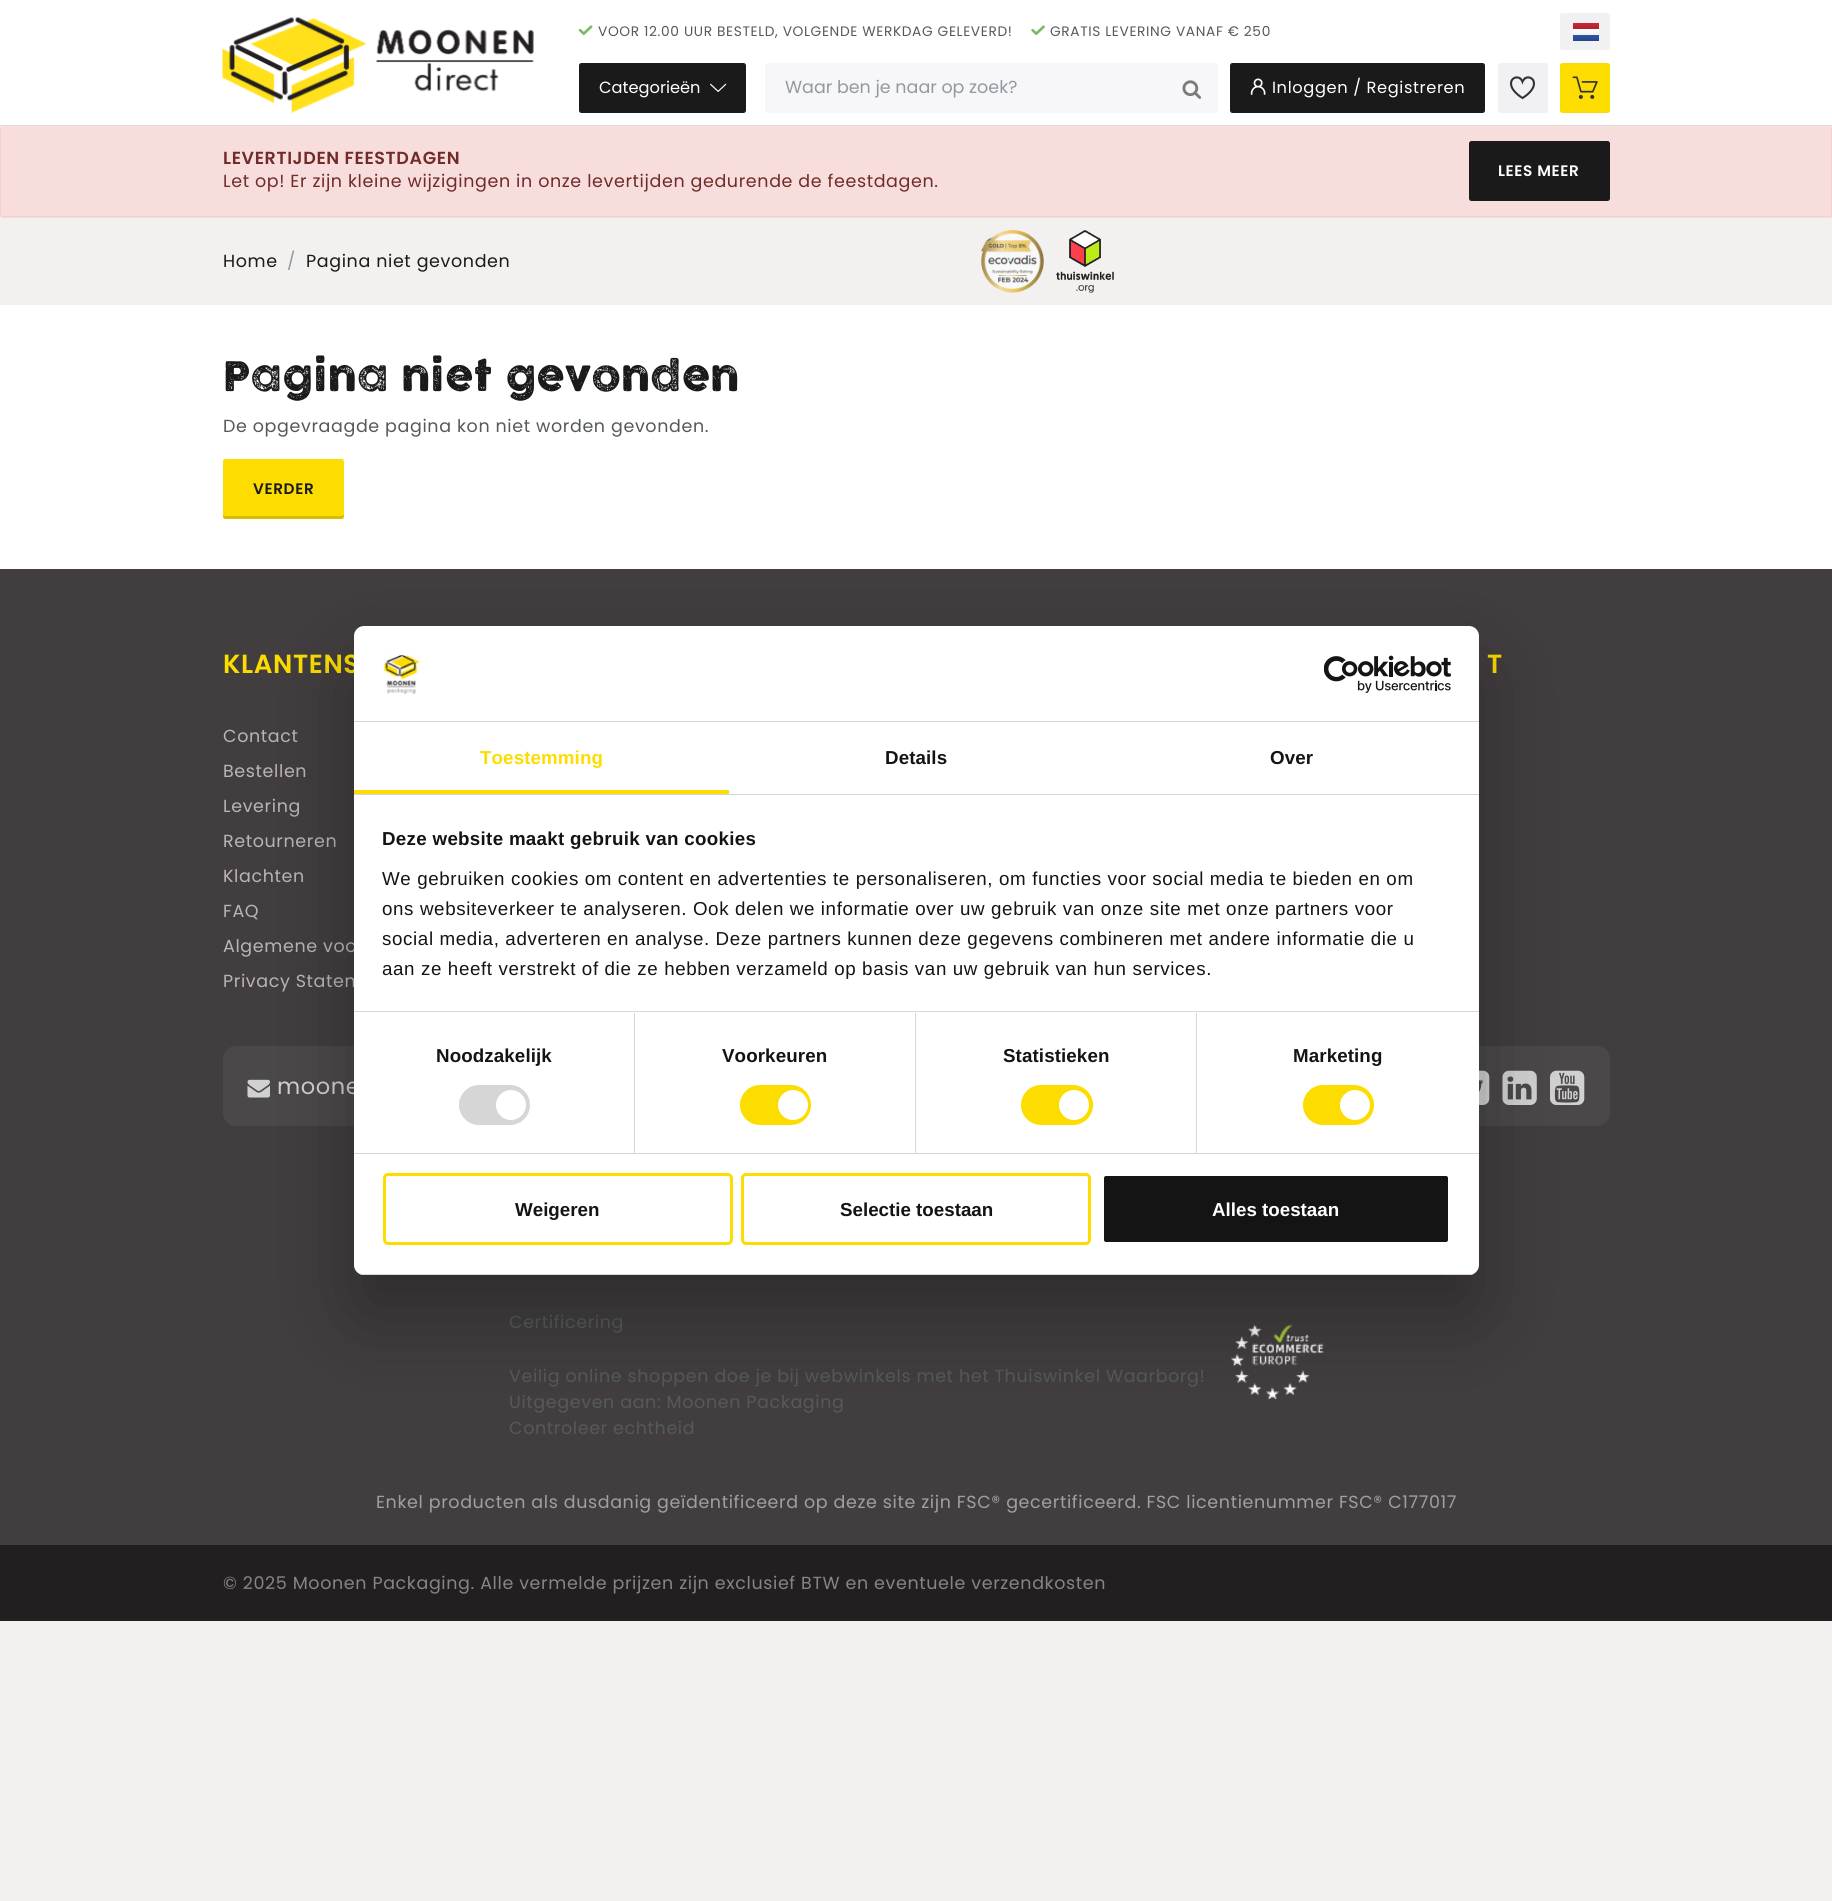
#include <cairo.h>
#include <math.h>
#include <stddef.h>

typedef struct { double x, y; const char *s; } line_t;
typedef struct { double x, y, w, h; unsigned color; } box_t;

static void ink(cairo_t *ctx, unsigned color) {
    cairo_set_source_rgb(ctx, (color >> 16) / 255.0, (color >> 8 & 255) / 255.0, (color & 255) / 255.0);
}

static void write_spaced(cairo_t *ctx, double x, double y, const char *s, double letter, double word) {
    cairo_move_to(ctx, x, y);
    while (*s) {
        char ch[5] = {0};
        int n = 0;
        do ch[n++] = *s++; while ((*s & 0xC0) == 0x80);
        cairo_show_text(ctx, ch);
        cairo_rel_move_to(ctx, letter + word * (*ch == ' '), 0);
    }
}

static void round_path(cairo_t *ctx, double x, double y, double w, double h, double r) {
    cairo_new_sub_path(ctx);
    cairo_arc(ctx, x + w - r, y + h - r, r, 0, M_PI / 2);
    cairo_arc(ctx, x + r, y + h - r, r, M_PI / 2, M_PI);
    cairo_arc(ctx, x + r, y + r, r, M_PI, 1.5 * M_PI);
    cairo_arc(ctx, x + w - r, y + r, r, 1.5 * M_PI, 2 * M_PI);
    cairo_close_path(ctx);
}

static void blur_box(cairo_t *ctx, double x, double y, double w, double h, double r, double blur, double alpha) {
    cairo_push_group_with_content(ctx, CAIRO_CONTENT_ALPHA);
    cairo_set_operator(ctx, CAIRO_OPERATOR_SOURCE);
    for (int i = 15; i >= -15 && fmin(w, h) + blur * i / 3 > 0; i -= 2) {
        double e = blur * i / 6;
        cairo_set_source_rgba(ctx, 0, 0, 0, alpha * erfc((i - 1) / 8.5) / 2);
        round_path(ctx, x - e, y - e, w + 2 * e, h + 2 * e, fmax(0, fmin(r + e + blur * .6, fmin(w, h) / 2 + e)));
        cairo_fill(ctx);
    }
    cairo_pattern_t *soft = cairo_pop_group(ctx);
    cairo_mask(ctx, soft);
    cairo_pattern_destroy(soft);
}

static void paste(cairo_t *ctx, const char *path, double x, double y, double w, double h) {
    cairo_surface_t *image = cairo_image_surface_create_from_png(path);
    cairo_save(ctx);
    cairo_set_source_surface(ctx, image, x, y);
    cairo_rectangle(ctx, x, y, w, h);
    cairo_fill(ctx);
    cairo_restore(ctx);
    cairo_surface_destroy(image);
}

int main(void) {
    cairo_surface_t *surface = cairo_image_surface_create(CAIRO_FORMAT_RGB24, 1832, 1901);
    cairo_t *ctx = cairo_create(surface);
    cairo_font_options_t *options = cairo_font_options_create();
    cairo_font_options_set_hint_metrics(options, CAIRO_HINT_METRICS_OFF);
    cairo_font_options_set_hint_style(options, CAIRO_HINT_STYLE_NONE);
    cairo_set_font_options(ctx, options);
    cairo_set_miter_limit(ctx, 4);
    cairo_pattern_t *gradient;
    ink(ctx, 0xF3F1EF);
    cairo_paint(ctx);
    ink(ctx, 0xFFFFFF);
    cairo_rectangle(ctx, 0, 0, 1832, 125);
    cairo_fill(ctx);
    ink(ctx, 0xDDDDDD);
    cairo_rectangle(ctx, 0, 125, 1832, 1);
    cairo_fill(ctx);
    paste(ctx, "media/1.png", 222, 17, 312, 96);
    paste(ctx, "media/2.png", 578, 25, 15, 10);
    cairo_select_font_face(ctx, "Poppins", CAIRO_FONT_SLANT_NORMAL, CAIRO_FONT_WEIGHT_NORMAL);
    cairo_set_font_size(ctx, 13.75);
    ink(ctx, 0x55595C);
    write_spaced(ctx, 598, 36, "VOOR 12.00 UUR BESTELD, VOLGENDE WERKDAG GELEVERD!", 0.62, 0);
    paste(ctx, "media/3.png", 1031, 25, 14, 10);
    write_spaced(ctx, 1050, 36, "GRATIS LEVERING VANAF € 250", 0.62, 0);
    ink(ctx, 0xF1F1F3);
    round_path(ctx, 1560, 13, 50, 37, 2.5);
    cairo_fill(ctx);
    gradient = cairo_pattern_create_linear(1586, 23, 1586, 29);
    cairo_pattern_add_color_stop_rgba(gradient, 0, 0.792, 0.169, 0.224, 1);
    cairo_pattern_add_color_stop_rgba(gradient, 1, 0.675, 0.122, 0.173, 1);
    cairo_set_source(ctx, gradient);
    cairo_pattern_destroy(gradient);
    cairo_rectangle(ctx, 1573, 23, 26, 6);
    cairo_fill(ctx);
    gradient = cairo_pattern_create_linear(1586, 35, 1586, 41);
    cairo_pattern_add_color_stop_rgba(gradient, 0, 0.173, 0.337, 0.635, 1);
    cairo_pattern_add_color_stop_rgba(gradient, 1, 0.141, 0.282, 0.537, 1);
    cairo_set_source(ctx, gradient);
    cairo_pattern_destroy(gradient);
    cairo_rectangle(ctx, 1573, 35, 26, 6);
    cairo_fill(ctx);
    gradient = cairo_pattern_create_linear(1586, 29, 1586, 35);
    cairo_pattern_add_color_stop_rgba(gradient, 0, 1, 1, 1, 1);
    cairo_pattern_add_color_stop_rgba(gradient, 1, 0.941, 0.941, 0.941, 1);
    cairo_set_source(ctx, gradient);
    cairo_pattern_destroy(gradient);
    cairo_rectangle(ctx, 1573, 29, 26, 5);
    cairo_fill(ctx);
    ink(ctx, 0x1A1A1A);
    round_path(ctx, 579, 63, 167, 50, 2.5);
    cairo_fill(ctx);
    cairo_set_font_size(ctx, 16.25);
    ink(ctx, 0xFFFFFF);
    cairo_move_to(ctx, 599, 93);
    cairo_show_text(ctx, "Categorieën");
    paste(ctx, "media/4.png", 710, 83, 17, 9);
    ink(ctx, 0xF7F7F9);
    round_path(ctx, 765, 63, 453, 50, 2.5);
    cairo_fill(ctx);
    cairo_set_font_size(ctx, 17.5);
    ink(ctx, 0x919AA1);
    cairo_move_to(ctx, 785, 93);
    cairo_show_text(ctx, "Waar ben je naar op zoek?");
    paste(ctx, "media/5.png", 1182, 80, 19, 19);
    ink(ctx, 0x1A1A1A);
    round_path(ctx, 1230, 63, 255, 50, 2.5);
    cairo_fill(ctx);
    paste(ctx, "media/6.png", 1250, 78, 16, 17);
    cairo_set_font_size(ctx, 16.25);
    ink(ctx, 0xFFFFFF);
    write_spaced(ctx, 1272, 93, "Inloggen / Registreren", 0.62, 0);
    ink(ctx, 0xF1F1F3);
    round_path(ctx, 1498, 63, 50, 50, 2.5);
    cairo_fill(ctx);
    paste(ctx, "media/7.png", 1510, 76, 25, 24);
    ink(ctx, 0xFDDD00);
    round_path(ctx, 1560, 63, 50, 50, 2.5);
    cairo_fill(ctx);
    paste(ctx, "media/8.png", 1572, 76, 26, 23);
    ink(ctx, 0xF7DDDC);
    round_path(ctx, 0, 126, 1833, 92, 2.5);
    cairo_fill(ctx);
    {
        static const box_t items[] = {
            {1831, 128, 1, 88, 0xF4CFCE},
            {1, 216, 1830, 1, 0xF4CFCE},
            {0, 128, 1, 88, 0xF4CFCE},
        };
        for (size_t i = 0; i < sizeof items / sizeof *items; i++) {
            ink(ctx, items[i].color);
            cairo_rectangle(ctx, items[i].x, items[i].y, items[i].w, items[i].h);
            cairo_fill(ctx);
        }
    }
    cairo_select_font_face(ctx, "Poppins SemiBold", CAIRO_FONT_SLANT_NORMAL, CAIRO_FONT_WEIGHT_NORMAL);
    cairo_set_font_size(ctx, 17.5);
    ink(ctx, 0x712B29);
    write_spaced(ctx, 223, 164, "LEVERTIJDEN FEESTDAGEN", 0.62, 0);
    cairo_select_font_face(ctx, "Poppins", CAIRO_FONT_SLANT_NORMAL, CAIRO_FONT_WEIGHT_NORMAL);
    write_spaced(ctx, 223, 187, "Let op! Er zijn kleine wijzigingen in onze levertijden gedurende de feestdagen.", 0.62, 0);
    ink(ctx, 0x1A1A1A);
    round_path(ctx, 1469, 141, 141, 60, 2.5);
    cairo_fill(ctx);
    cairo_select_font_face(ctx, "Poppins SemiBold", CAIRO_FONT_SLANT_NORMAL, CAIRO_FONT_WEIGHT_NORMAL);
    cairo_set_font_size(ctx, 15.25);
    ink(ctx, 0xFFFFFF);
    write_spaced(ctx, 1498, 176, "LEES MEER", 0.62, 0);
    cairo_select_font_face(ctx, "Poppins", CAIRO_FONT_SLANT_NORMAL, CAIRO_FONT_WEIGHT_NORMAL);
    cairo_set_font_size(ctx, 17.5);
    ink(ctx, 0x1A1A1A);
    write_spaced(ctx, 223, 267, "Home", 0.62, 0);
    ink(ctx, 0x919AA1);
    write_spaced(ctx, 287, 267, "/", 0.62, 0);
    ink(ctx, 0x1A1A1A);
    write_spaced(ctx, 306, 267, "Pagina niet gevonden", 0.62, 0);
    paste(ctx, "media/9.png", 981, 230, 63, 63);
    paste(ctx, "media/10.png", 1056, 230, 58, 63);
    ink(ctx, 0xFFFFFF);
    cairo_rectangle(ctx, 0, 305, 1832, 264);
    cairo_fill(ctx);
    cairo_select_font_face(ctx, "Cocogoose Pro", CAIRO_FONT_SLANT_NORMAL, CAIRO_FONT_WEIGHT_NORMAL);
    cairo_set_font_size(ctx, 40);
    ink(ctx, 0x1A1A1A);
    write_spaced(ctx, 223, 391, "Pagina niet gevonden", 0.62, 0);
    cairo_select_font_face(ctx, "Poppins", CAIRO_FONT_SLANT_NORMAL, CAIRO_FONT_WEIGHT_NORMAL);
    cairo_set_font_size(ctx, 17.5);
    ink(ctx, 0x55595C);
    write_spaced(ctx, 223, 432, "De opgevraagde pagina kon niet worden gevonden.", 0.62, 0);
    ink(ctx, 0xFDDD00);
    round_path(ctx, 223, 459, 121, 60, 2.5);
    cairo_fill(ctx);
    cairo_set_source_rgba(ctx, 0, 0, 0, 0.15);
    cairo_new_path(ctx);
    cairo_move_to(ctx, 223, 515);
    cairo_line_to(ctx, 223, 516);
    cairo_curve_to(ctx, 223, 518, 224, 519, 226, 519);
    cairo_line_to(ctx, 342, 519);
    cairo_curve_to(ctx, 343, 519, 344, 518, 344, 516);
    cairo_line_to(ctx, 344, 514);
    cairo_curve_to(ctx, 344, 515, 343, 516, 341, 516);
    cairo_line_to(ctx, 225, 516);
    cairo_close_path(ctx);
    cairo_fill(ctx);
    cairo_select_font_face(ctx, "Poppins SemiBold", CAIRO_FONT_SLANT_NORMAL, CAIRO_FONT_WEIGHT_NORMAL);
    cairo_set_font_size(ctx, 15.25);
    ink(ctx, 0x1A1A1A);
    write_spaced(ctx, 253, 494, "VERDER", 0.62, 0);
    ink(ctx, 0x423E3F);
    cairo_rectangle(ctx, 0, 569, 1832, 976);
    cairo_fill(ctx);
    cairo_set_font_size(ctx, 26.25);
    ink(ctx, 0xFDDD00);
    write_spaced(ctx, 223, 673, "KLANTENS", 0.62, 0);
    cairo_select_font_face(ctx, "Poppins", CAIRO_FONT_SLANT_NORMAL, CAIRO_FONT_WEIGHT_NORMAL);
    cairo_set_font_size(ctx, 17.5);
    ink(ctx, 0xBAB5B5);
    {
        static const line_t items[] = {
            {223, 742, "Contact"},
            {223, 777, "Bestellen"},
            {223, 812, "Levering"},
            {223, 847, "Retourneren"},
            {223, 882, "Klachten"},
            {223, 917, "FAQ"},
            {223, 952, "Algemene voo"},
            {223, 987, "Privacy Statem"},
        };
        for (size_t i = 0; i < sizeof items / sizeof *items; i++) {
            write_spaced(ctx, items[i].x, items[i].y, items[i].s, 0.62, 0);
        }
    }
    cairo_select_font_face(ctx, "Poppins SemiBold", CAIRO_FONT_SLANT_NORMAL, CAIRO_FONT_WEIGHT_NORMAL);
    cairo_set_font_size(ctx, 26.25);
    ink(ctx, 0xFDDD00);
    write_spaced(ctx, 1487, 673, "T", 0.62, 0);
    ink(ctx, 0x4B4849);
    round_path(ctx, 223, 1046, 1387, 80, 13);
    cairo_fill(ctx);
    paste(ctx, "media/11.png", 247, 1079, 23, 19);
    cairo_select_font_face(ctx, "Poppins", CAIRO_FONT_SLANT_NORMAL, CAIRO_FONT_WEIGHT_NORMAL);
    cairo_set_font_size(ctx, 22.5);
    ink(ctx, 0xD2D1D2);
    write_spaced(ctx, 277, 1094, "moone", 0.62, 0);
    paste(ctx, "media/12.png", 1479, 1070, 11, 35);
    paste(ctx, "media/13.png", 1502, 1070, 35, 35);
    paste(ctx, "media/14.png", 1550, 1070, 35, 35);
    cairo_set_font_size(ctx, 17.5);
    ink(ctx, 0x55595C);
    {
        static const line_t items[] = {
            {509, 1328, "Certificering"},
            {509, 1382, "Veilig online shoppen doe je bij webwinkels met het Thuiswinkel Waarborg!"},
            {509, 1408, "Uitgegeven aan: Moonen Packaging"},
            {509, 1434, "Controleer echtheid"},
        };
        for (size_t i = 0; i < sizeof items / sizeof *items; i++) {
            write_spaced(ctx, items[i].x, items[i].y, items[i].s, 0.62, 0);
        }
    }
    paste(ctx, "media/15.png", 1230, 1324, 94, 76);
    ink(ctx, 0xA19F9F);
    write_spaced(ctx, 376, 1508, "Enkel producten als dusdanig geïdentificeerd op deze site zijn FSC® gecertificeerd. FSC licentienummer FSC® C177017", 0.62, 0);
    ink(ctx, 0x231F20);
    cairo_rectangle(ctx, 0, 1545, 1832, 76);
    cairo_fill(ctx);
    ink(ctx, 0x888485);
    write_spaced(ctx, 223, 1589, "© 2025 Moonen Packaging. Alle vermelde prijzen zijn exclusief BTW en eventuele verzendkosten", 0.62, 0);
    ink(ctx, 0x000000);
    blur_box(ctx, 354, 666, 1125, 649, 10, 42.5, 0.3);
    ink(ctx, 0xFFFFFF);
    round_path(ctx, 354, 626, 1125, 649, 10);
    cairo_fill(ctx);
    ink(ctx, 0xD6D6D6);
    cairo_rectangle(ctx, 354, 721, 1125, 1);
    cairo_fill(ctx);
    paste(ctx, "media/16.png", 383, 654, 37, 41);
    paste(ctx, "media/17.png", 1324, 655, 127, 38);
    cairo_rectangle(ctx, 354, 794, 1125, 1);
    cairo_fill(ctx);
    ink(ctx, 0xFDDD00);
    cairo_rectangle(ctx, 354, 790, 375, 4);
    cairo_fill(ctx);
    cairo_select_font_face(ctx, "Liberation Sans", CAIRO_FONT_SLANT_NORMAL, CAIRO_FONT_WEIGHT_BOLD);
    cairo_set_font_size(ctx, 18.75);
    write_spaced(ctx, 480, 764, "Toestemming", 0.1, 0);
    ink(ctx, 0x141414);
    write_spaced(ctx, 885, 764, "Details", 0.1, 0);
    write_spaced(ctx, 1270, 764, "Over", 0.1, 0);
    ink(ctx, 0xD6D6D6);
    cairo_rectangle(ctx, 354, 1011, 1125, 1);
    cairo_fill(ctx);
    ink(ctx, 0x141414);
    write_spaced(ctx, 382, 845, "Deze website maakt gebruik van cookies", 0.3, 0);
    cairo_select_font_face(ctx, "Liberation Sans", CAIRO_FONT_SLANT_NORMAL, CAIRO_FONT_WEIGHT_NORMAL);
    {
        static const line_t items[] = {
            {382, 885, "We gebruiken cookies om content en advertenties te personaliseren, om functies voor social media te bieden en om"},
            {382, 915, "ons websiteverkeer te analyseren. Ook delen we informatie over uw gebruik van onze site met onze partners voor"},
            {382, 945, "social media, adverteren en analyse. Deze partners kunnen deze gegevens combineren met andere informatie die u"},
            {382, 975, "aan ze heeft verstrekt of die ze hebben verzameld op basis van uw gebruik van hun services."},
        };
        for (size_t i = 0; i < sizeof items / sizeof *items; i++) {
            write_spaced(ctx, items[i].x, items[i].y, items[i].s, 0.62, 0);
        }
    }
    ink(ctx, 0xD6D6D6);
    cairo_rectangle(ctx, 354, 1153, 1125, 1);
    cairo_fill(ctx);
    cairo_rectangle(ctx, 634, 1013, 1, 140);
    cairo_fill(ctx);
    cairo_select_font_face(ctx, "Liberation Sans", CAIRO_FONT_SLANT_NORMAL, CAIRO_FONT_WEIGHT_BOLD);
    ink(ctx, 0x141414);
    write_spaced(ctx, 436, 1062, "Noodzakelijk", 0.1, 0);
    ink(ctx, 0xD6D6D6);
    round_path(ctx, 459, 1085, 71, 40, 20);
    cairo_fill(ctx);
    ink(ctx, 0xFFFFFF);
    cairo_arc(ctx, 511, 1105, 15, 0, 2 * M_PI);
    cairo_fill(ctx);
    ink(ctx, 0xD6D6D6);
    cairo_rectangle(ctx, 915, 1013, 1, 140);
    cairo_fill(ctx);
    ink(ctx, 0x141414);
    write_spaced(ctx, 722, 1062, "Voorkeuren", 0.1, 0);
    ink(ctx, 0xFDDD00);
    round_path(ctx, 740, 1085, 71, 40, 20);
    cairo_fill(ctx);
    ink(ctx, 0xFFFFFF);
    cairo_arc(ctx, 793, 1105, 15, 0, 2 * M_PI);
    cairo_fill(ctx);
    ink(ctx, 0xD6D6D6);
    cairo_rectangle(ctx, 1196, 1013, 1, 140);
    cairo_fill(ctx);
    ink(ctx, 0x141414);
    write_spaced(ctx, 1003, 1062, "Statistieken", 0.1, 0);
    ink(ctx, 0xFDDD00);
    round_path(ctx, 1021, 1085, 72, 40, 20);
    cairo_fill(ctx);
    ink(ctx, 0xFFFFFF);
    cairo_arc(ctx, 1074, 1105, 15, 0, 2 * M_PI);
    cairo_fill(ctx);
    ink(ctx, 0x141414);
    write_spaced(ctx, 1293, 1062, "Marketing", 0.1, 0);
    ink(ctx, 0xFDDD00);
    round_path(ctx, 1303, 1085, 71, 40, 20);
    cairo_fill(ctx);
    ink(ctx, 0xFFFFFF);
    cairo_arc(ctx, 1355, 1105, 15, 0, 2 * M_PI);
    cairo_fill(ctx);
    cairo_save(ctx);
    round_path(ctx, 354, 626, 1125, 649, 10);
    cairo_clip(ctx);
    ink(ctx, 0xD6D6D6);
    cairo_rectangle(ctx, 354, 1274, 1125, 1);
    cairo_fill(ctx);
    cairo_restore(ctx);
    round_path(ctx, 384.5, 1174.5, 347, 69, 3.5);
    ink(ctx, 0xFDDD00);
    cairo_set_line_width(ctx, 3);
    cairo_stroke(ctx);
    ink(ctx, 0x141414);
    cairo_move_to(ctx, 515, 1216);
    cairo_show_text(ctx, "Weigeren");
    round_path(ctx, 742.5, 1174.5, 347, 69, 3.5);
    ink(ctx, 0xFDDD00);
    cairo_stroke(ctx);
    ink(ctx, 0x141414);
    cairo_move_to(ctx, 840, 1216);
    cairo_show_text(ctx, "Selectie toestaan");
    round_path(ctx, 1102.5, 1174.5, 347, 69, 3.5);
    cairo_fill_preserve(ctx);
    ink(ctx, 0xFFFFFF);
    cairo_stroke(ctx);
    cairo_move_to(ctx, 1212, 1216);
    cairo_show_text(ctx, "Alles toestaan");
    cairo_surface_write_to_png(surface, "image.png");
    cairo_font_options_destroy(options);
    cairo_destroy(ctx);
    cairo_surface_destroy(surface);
    return 0;
}
